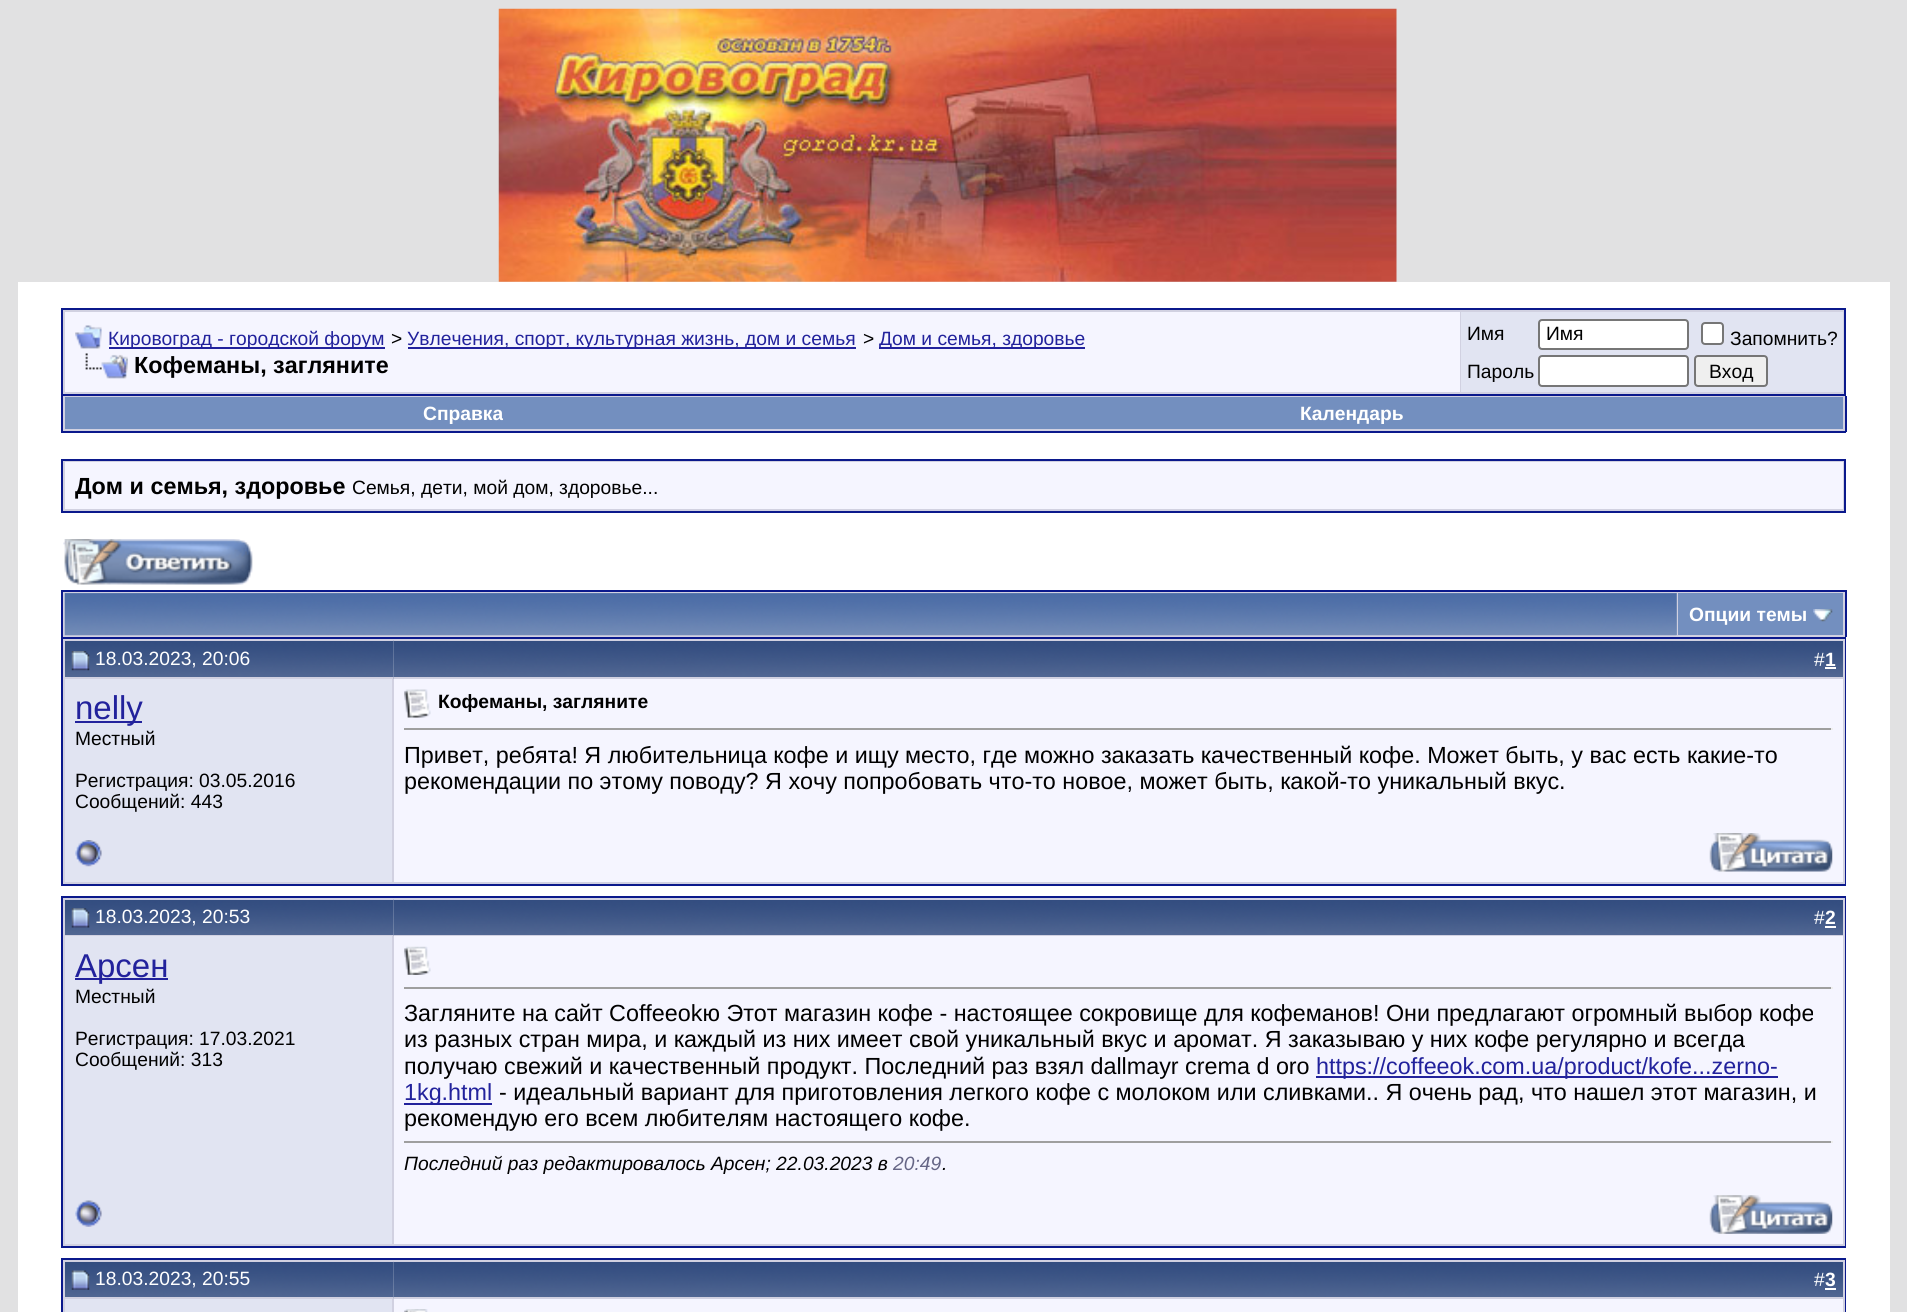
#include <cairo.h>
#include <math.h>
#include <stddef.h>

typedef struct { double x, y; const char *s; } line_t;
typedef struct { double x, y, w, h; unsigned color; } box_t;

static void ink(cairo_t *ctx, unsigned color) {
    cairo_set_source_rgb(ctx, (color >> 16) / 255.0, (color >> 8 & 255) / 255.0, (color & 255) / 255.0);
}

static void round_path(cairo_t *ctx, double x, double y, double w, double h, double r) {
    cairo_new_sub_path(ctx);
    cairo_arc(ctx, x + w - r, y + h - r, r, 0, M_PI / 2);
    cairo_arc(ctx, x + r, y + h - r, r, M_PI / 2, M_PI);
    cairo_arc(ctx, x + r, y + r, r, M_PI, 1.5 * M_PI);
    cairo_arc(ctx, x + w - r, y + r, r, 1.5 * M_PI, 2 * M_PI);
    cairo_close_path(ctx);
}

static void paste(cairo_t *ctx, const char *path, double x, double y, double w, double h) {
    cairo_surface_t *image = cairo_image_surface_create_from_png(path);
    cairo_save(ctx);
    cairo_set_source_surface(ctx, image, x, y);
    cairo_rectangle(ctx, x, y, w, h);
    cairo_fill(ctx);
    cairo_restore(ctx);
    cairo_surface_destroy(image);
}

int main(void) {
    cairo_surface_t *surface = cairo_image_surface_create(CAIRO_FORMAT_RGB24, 1907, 1312);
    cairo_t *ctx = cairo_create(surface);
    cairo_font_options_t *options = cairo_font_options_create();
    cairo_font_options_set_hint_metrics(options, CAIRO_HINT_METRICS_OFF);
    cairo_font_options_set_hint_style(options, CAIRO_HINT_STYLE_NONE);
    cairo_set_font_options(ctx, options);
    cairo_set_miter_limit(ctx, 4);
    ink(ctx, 0xE1E1E2);
    cairo_paint(ctx);
    paste(ctx, "media/1.png", 498, 8, 899, 274);
    ink(ctx, 0xFFFFFF);
    cairo_rectangle(ctx, 18, 282, 1872, 1030);
    cairo_fill(ctx);
    ink(ctx, 0xD1D1E1);
    cairo_rectangle(ctx, 62, 309, 1783, 86);
    cairo_fill_preserve(ctx);
    ink(ctx, 0x0B198C);
    cairo_stroke(ctx);
    ink(ctx, 0xF5F5FF);
    cairo_rectangle(ctx, 65, 312, 1395, 80);
    cairo_fill(ctx);
    paste(ctx, "media/2.png", 75, 325, 27, 24);
    ink(ctx, 0x22229C);
    cairo_rectangle(ctx, 109, 347, 276, 2);
    cairo_fill(ctx);
    cairo_select_font_face(ctx, "Liberation Sans", CAIRO_FONT_SLANT_NORMAL, CAIRO_FONT_WEIGHT_NORMAL);
    cairo_set_font_size(ctx, 19.25);
    cairo_move_to(ctx, 108, 345);
    cairo_show_text(ctx, "Кировоград - городской форум");
    ink(ctx, 0x000000);
    cairo_move_to(ctx, 391, 345);
    cairo_show_text(ctx, ">");
    ink(ctx, 0x22229C);
    cairo_rectangle(ctx, 408, 347, 448, 2);
    cairo_fill(ctx);
    cairo_move_to(ctx, 407, 345);
    cairo_show_text(ctx, "Увлечения, спорт, культурная жизнь, дом и семья");
    ink(ctx, 0x000000);
    cairo_move_to(ctx, 863, 345);
    cairo_show_text(ctx, ">");
    ink(ctx, 0x22229C);
    cairo_rectangle(ctx, 879, 347, 206, 2);
    cairo_fill(ctx);
    cairo_move_to(ctx, 879, 345);
    cairo_show_text(ctx, "Дом и семья, здоровье");
    paste(ctx, "media/3.png", 85, 353, 43, 26);
    cairo_select_font_face(ctx, "Liberation Sans", CAIRO_FONT_SLANT_NORMAL, CAIRO_FONT_WEIGHT_BOLD);
    cairo_set_font_size(ctx, 23.33);
    ink(ctx, 0x000000);
    cairo_move_to(ctx, 134, 373);
    cairo_show_text(ctx, "Кофеманы, загляните");
    ink(ctx, 0xE1E4F2);
    cairo_rectangle(ctx, 1461, 312, 382, 80);
    cairo_fill(ctx);
    cairo_select_font_face(ctx, "Liberation Sans", CAIRO_FONT_SLANT_NORMAL, CAIRO_FONT_WEIGHT_NORMAL);
    cairo_set_font_size(ctx, 19.25);
    ink(ctx, 0x000000);
    cairo_move_to(ctx, 1467, 340);
    cairo_show_text(ctx, "Имя");
    ink(ctx, 0xFFFFFF);
    round_path(ctx, 1539, 320, 149, 29, 3);
    cairo_fill_preserve(ctx);
    ink(ctx, 0x767676);
    cairo_stroke(ctx);
    ink(ctx, 0x000000);
    cairo_move_to(ctx, 1546, 340);
    cairo_show_text(ctx, "Имя");
    ink(ctx, 0xFFFFFF);
    round_path(ctx, 1702, 323, 21, 21, 3);
    cairo_fill_preserve(ctx);
    ink(ctx, 0x767676);
    cairo_stroke(ctx);
    ink(ctx, 0x000000);
    cairo_move_to(ctx, 1730, 345);
    cairo_show_text(ctx, "Запомнить?");
    cairo_move_to(ctx, 1467, 378);
    cairo_show_text(ctx, "Пароль");
    ink(ctx, 0xFFFFFF);
    round_path(ctx, 1539, 356, 149, 30, 3);
    cairo_fill_preserve(ctx);
    ink(ctx, 0x767676);
    cairo_stroke(ctx);
    ink(ctx, 0xEFEFEF);
    round_path(ctx, 1695, 356, 72, 30, 3);
    cairo_fill_preserve(ctx);
    ink(ctx, 0x767676);
    cairo_stroke(ctx);
    ink(ctx, 0x000000);
    cairo_move_to(ctx, 1709, 378);
    cairo_show_text(ctx, "Вход");
    {
        static const box_t items[] = {
            {63, 396, 1782, 35, 0xD1D1E1},
            {1845, 396, 2, 36, 0x0B198C},
            {61, 431, 1785, 2, 0x0B198C},
            {61, 396, 2, 36, 0x0B198C},
            {65, 397, 1778, 32, 0x738FBF},
        };
        for (size_t i = 0; i < sizeof items / sizeof *items; i++) {
            ink(ctx, items[i].color);
            cairo_rectangle(ctx, items[i].x, items[i].y, items[i].w, items[i].h);
            cairo_fill(ctx);
        }
    }
    cairo_select_font_face(ctx, "Liberation Sans", CAIRO_FONT_SLANT_NORMAL, CAIRO_FONT_WEIGHT_BOLD);
    ink(ctx, 0xFFFFFF);
    cairo_move_to(ctx, 423, 420);
    cairo_show_text(ctx, "Справка");
    cairo_move_to(ctx, 1300, 420);
    cairo_show_text(ctx, "Календарь");
    ink(ctx, 0xD1D1E1);
    cairo_rectangle(ctx, 62, 460, 1783, 52);
    cairo_fill_preserve(ctx);
    ink(ctx, 0x0B198C);
    cairo_stroke(ctx);
    ink(ctx, 0xF5F5FF);
    cairo_rectangle(ctx, 65, 462, 1778, 47);
    cairo_fill(ctx);
    cairo_set_font_size(ctx, 23.33);
    ink(ctx, 0x000000);
    cairo_move_to(ctx, 75, 494);
    cairo_show_text(ctx, "Дом и семья, здоровье");
    cairo_select_font_face(ctx, "Liberation Sans", CAIRO_FONT_SLANT_NORMAL, CAIRO_FONT_WEIGHT_NORMAL);
    cairo_set_font_size(ctx, 19.25);
    cairo_move_to(ctx, 352, 494);
    cairo_show_text(ctx, "Семья, дети, мой дом, здоровье...");
    paste(ctx, "media/4.png", 63, 539, 190, 46);
    {
        static const box_t items[] = {
            {63, 592, 1782, 45, 0xD1D1E1},
            {61, 590, 1785, 2, 0x0B198C},
            {1845, 590, 2, 47, 0x0B198C},
            {61, 590, 2, 47, 0x0B198C},
            {65, 593, 1612, 42, 0x869BBF},
        };
        for (size_t i = 0; i < sizeof items / sizeof *items; i++) {
            ink(ctx, items[i].color);
            cairo_rectangle(ctx, items[i].x, items[i].y, items[i].w, items[i].h);
            cairo_fill(ctx);
        }
    }
    paste(ctx, "media/5.png", 64, 593, 1613, 43);
    ink(ctx, 0x738FBF);
    cairo_rectangle(ctx, 1678, 593, 165, 42);
    cairo_fill(ctx);
    cairo_select_font_face(ctx, "Liberation Sans", CAIRO_FONT_SLANT_NORMAL, CAIRO_FONT_WEIGHT_BOLD);
    ink(ctx, 0xFFFFFF);
    cairo_move_to(ctx, 1689, 621);
    cairo_show_text(ctx, "Опции темы");
    paste(ctx, "media/6.png", 1813, 609, 20, 13);
    cairo_rectangle(ctx, 62, 638, 1783, 247);
    ink(ctx, 0x0B198C);
    cairo_stroke(ctx);
    paste(ctx, "media/7.png", 65, 641, 329, 36);
    {
        static const box_t items[] = {
            {63, 639, 331, 2, 0xD1D1E1},
            {63, 677, 331, 2, 0xD1D1E1},
            {63, 639, 2, 184, 0xD1D1E1},
        };
        for (size_t i = 0; i < sizeof items / sizeof *items; i++) {
            ink(ctx, items[i].color);
            cairo_rectangle(ctx, items[i].x, items[i].y, items[i].w, items[i].h);
            cairo_fill(ctx);
        }
    }
    paste(ctx, "media/8.png", 71, 651, 19, 20);
    cairo_select_font_face(ctx, "Liberation Sans", CAIRO_FONT_SLANT_NORMAL, CAIRO_FONT_WEIGHT_NORMAL);
    ink(ctx, 0xFFFFFF);
    cairo_move_to(ctx, 95, 665);
    cairo_show_text(ctx, "18.03.2023, 20:06");
    paste(ctx, "media/9.png", 393, 640, 1450, 39);
    {
        static const box_t items[] = {
            {394, 639, 1451, 2, 0xD1D1E1},
            {1843, 639, 2, 245, 0xD1D1E1},
            {394, 677, 1451, 2, 0xD1D1E1},
        };
        for (size_t i = 0; i < sizeof items / sizeof *items; i++) {
            ink(ctx, items[i].color);
            cairo_rectangle(ctx, items[i].x, items[i].y, items[i].w, items[i].h);
            cairo_fill(ctx);
        }
    }
    ink(ctx, 0xFFFFFF);
    cairo_move_to(ctx, 1814, 666);
    cairo_show_text(ctx, "#");
    cairo_select_font_face(ctx, "Liberation Sans", CAIRO_FONT_SLANT_NORMAL, CAIRO_FONT_WEIGHT_BOLD);
    cairo_move_to(ctx, 1825, 666);
    cairo_show_text(ctx, "1");
    {
        static const box_t items[] = {
            {1825, 667, 11, 2, 0xFFFFFF},
            {65, 679, 327, 203, 0xE1E4F2},
            {392, 679, 2, 205, 0xD1D1E1},
            {75, 721, 67, 2, 0x22229C},
        };
        for (size_t i = 0; i < sizeof items / sizeof *items; i++) {
            ink(ctx, items[i].color);
            cairo_rectangle(ctx, items[i].x, items[i].y, items[i].w, items[i].h);
            cairo_fill(ctx);
        }
    }
    cairo_select_font_face(ctx, "Liberation Sans", CAIRO_FONT_SLANT_NORMAL, CAIRO_FONT_WEIGHT_NORMAL);
    cairo_set_font_size(ctx, 33);
    cairo_move_to(ctx, 75, 719);
    cairo_show_text(ctx, "nelly");
    cairo_set_font_size(ctx, 19.25);
    ink(ctx, 0x000000);
    {
        static const line_t items[] = {
            {75, 745, "Местный"},
            {75, 787, "Регистрация: 03.05.2016"},
            {75, 808, "Сообщений: 443"},
        };
        for (size_t i = 0; i < sizeof items / sizeof *items; i++) {
            cairo_move_to(ctx, items[i].x, items[i].y);
            cairo_show_text(ctx, items[i].s);
        }
    }
    ink(ctx, 0xF5F5FF);
    cairo_rectangle(ctx, 394, 679, 1449, 203);
    cairo_fill(ctx);
    paste(ctx, "media/10.png", 404, 689, 27, 29);
    cairo_select_font_face(ctx, "Liberation Sans", CAIRO_FONT_SLANT_NORMAL, CAIRO_FONT_WEIGHT_BOLD);
    ink(ctx, 0x000000);
    cairo_move_to(ctx, 438, 708);
    cairo_show_text(ctx, "Кофеманы, загляните");
    ink(ctx, 0x9F9F9F);
    cairo_rectangle(ctx, 404, 728, 1428, 2);
    cairo_fill(ctx);
    ink(ctx, 0xEEEEEE);
    cairo_rectangle(ctx, 1831, 728, 2, 2);
    cairo_fill(ctx);
    cairo_select_font_face(ctx, "Liberation Sans", CAIRO_FONT_SLANT_NORMAL, CAIRO_FONT_WEIGHT_NORMAL);
    cairo_set_font_size(ctx, 23.33);
    ink(ctx, 0x000000);
    cairo_move_to(ctx, 404, 763);
    cairo_show_text(ctx, "Привет, ребята! Я любительница кофе и ищу место, где можно заказать качественный кофе. Может быть, у вас есть какие-то");
    cairo_move_to(ctx, 404, 789);
    cairo_show_text(ctx, "рекомендации по этому поводу? Я хочу попробовать что-то новое, может быть, какой-то уникальный вкус.");
    ink(ctx, 0xD1D1E1);
    cairo_rectangle(ctx, 63, 882, 1782, 2);
    cairo_fill(ctx);
    cairo_rectangle(ctx, 63, 823, 2, 61);
    cairo_fill(ctx);
    paste(ctx, "media/11.png", 75, 840, 27, 27);
    paste(ctx, "media/12.png", 1709, 833, 124, 39);
    cairo_rectangle(ctx, 62, 897, 1783, 350);
    ink(ctx, 0x0B198C);
    cairo_stroke(ctx);
    paste(ctx, "media/13.png", 65, 900, 329, 35);
    {
        static const box_t items[] = {
            {63, 898, 331, 2, 0xD1D1E1},
            {63, 935, 331, 1, 0xD1D1E1},
            {63, 898, 2, 287, 0xD1D1E1},
        };
        for (size_t i = 0; i < sizeof items / sizeof *items; i++) {
            ink(ctx, items[i].color);
            cairo_rectangle(ctx, items[i].x, items[i].y, items[i].w, items[i].h);
            cairo_fill(ctx);
        }
    }
    paste(ctx, "media/14.png", 71, 908, 19, 20);
    cairo_set_font_size(ctx, 19.25);
    ink(ctx, 0xFFFFFF);
    cairo_move_to(ctx, 95, 923);
    cairo_show_text(ctx, "18.03.2023, 20:53");
    paste(ctx, "media/15.png", 393, 899, 1450, 37);
    {
        static const box_t items[] = {
            {394, 898, 1451, 2, 0xD1D1E1},
            {1843, 898, 2, 348, 0xD1D1E1},
            {394, 935, 1451, 1, 0xD1D1E1},
        };
        for (size_t i = 0; i < sizeof items / sizeof *items; i++) {
            ink(ctx, items[i].color);
            cairo_rectangle(ctx, items[i].x, items[i].y, items[i].w, items[i].h);
            cairo_fill(ctx);
        }
    }
    ink(ctx, 0xFFFFFF);
    cairo_move_to(ctx, 1814, 924);
    cairo_show_text(ctx, "#");
    cairo_select_font_face(ctx, "Liberation Sans", CAIRO_FONT_SLANT_NORMAL, CAIRO_FONT_WEIGHT_BOLD);
    cairo_move_to(ctx, 1825, 924);
    cairo_show_text(ctx, "2");
    {
        static const box_t items[] = {
            {1825, 926, 11, 2, 0xFFFFFF},
            {65, 936, 327, 308, 0xE1E4F2},
            {392, 936, 2, 310, 0xD1D1E1},
            {75, 978, 93, 2, 0x22229C},
        };
        for (size_t i = 0; i < sizeof items / sizeof *items; i++) {
            ink(ctx, items[i].color);
            cairo_rectangle(ctx, items[i].x, items[i].y, items[i].w, items[i].h);
            cairo_fill(ctx);
        }
    }
    cairo_select_font_face(ctx, "Liberation Sans", CAIRO_FONT_SLANT_NORMAL, CAIRO_FONT_WEIGHT_NORMAL);
    cairo_set_font_size(ctx, 33);
    cairo_move_to(ctx, 75, 977);
    cairo_show_text(ctx, "Арсен");
    cairo_set_font_size(ctx, 19.25);
    ink(ctx, 0x000000);
    {
        static const line_t items[] = {
            {75, 1003, "Местный"},
            {75, 1045, "Регистрация: 17.03.2021"},
            {75, 1066, "Сообщений: 313"},
        };
        for (size_t i = 0; i < sizeof items / sizeof *items; i++) {
            cairo_move_to(ctx, items[i].x, items[i].y);
            cairo_show_text(ctx, items[i].s);
        }
    }
    ink(ctx, 0xF5F5FF);
    cairo_rectangle(ctx, 394, 936, 1449, 308);
    cairo_fill(ctx);
    paste(ctx, "media/16.png", 404, 946, 27, 29);
    ink(ctx, 0x9F9F9F);
    cairo_rectangle(ctx, 404, 987, 1428, 2);
    cairo_fill(ctx);
    ink(ctx, 0xEEEEEE);
    cairo_rectangle(ctx, 1831, 987, 2, 2);
    cairo_fill(ctx);
    cairo_set_font_size(ctx, 23.33);
    ink(ctx, 0x000000);
    {
        static const line_t items[] = {
            {404, 1021, "Загляните на сайт Coffeeokю Этот магазин кофе - настоящее сокровище для кофеманов! Они предлагают огромный выбор кофе"},
            {404, 1047, "из разных стран мира, и каждый из них имеет свой уникальный вкус и аромат. Я заказываю у них кофе регулярно и всегда"},
            {404, 1074, "получаю свежий и качественный продукт. Последний раз взял dallmayr crema d oro"},
        };
        for (size_t i = 0; i < sizeof items / sizeof *items; i++) {
            cairo_move_to(ctx, items[i].x, items[i].y);
            cairo_show_text(ctx, items[i].s);
        }
    }
    ink(ctx, 0x22229C);
    cairo_rectangle(ctx, 1316, 1076, 462, 2);
    cairo_fill(ctx);
    cairo_move_to(ctx, 1316, 1074);
    cairo_show_text(ctx, "https://coffeeok.com.ua/product/kofe...zerno-");
    cairo_rectangle(ctx, 404, 1103, 88, 2);
    cairo_fill(ctx);
    cairo_move_to(ctx, 404, 1100);
    cairo_show_text(ctx, "1kg.html");
    ink(ctx, 0x000000);
    cairo_move_to(ctx, 499, 1100);
    cairo_show_text(ctx, "- идеальный вариант для приготовления легкого кофе с молоком или сливками.. Я очень рад, что нашел этот магазин, и");
    cairo_move_to(ctx, 404, 1126);
    cairo_show_text(ctx, "рекомендую его всем любителям настоящего кофе.");
    ink(ctx, 0x9F9F9F);
    cairo_rectangle(ctx, 404, 1141, 1428, 2);
    cairo_fill(ctx);
    ink(ctx, 0xEEEEEE);
    cairo_rectangle(ctx, 1831, 1141, 2, 2);
    cairo_fill(ctx);
    cairo_select_font_face(ctx, "Liberation Sans", CAIRO_FONT_SLANT_ITALIC, CAIRO_FONT_WEIGHT_NORMAL);
    cairo_set_font_size(ctx, 19.25);
    ink(ctx, 0x000000);
    cairo_move_to(ctx, 404, 1170);
    cairo_show_text(ctx, "Последний раз редактировалось Арсен; 22.03.2023 в");
    ink(ctx, 0x666686);
    cairo_move_to(ctx, 893, 1170);
    cairo_show_text(ctx, "20:49");
    ink(ctx, 0x000000);
    cairo_move_to(ctx, 942, 1170);
    cairo_show_text(ctx, ".");
    ink(ctx, 0xD1D1E1);
    cairo_rectangle(ctx, 63, 1244, 1782, 2);
    cairo_fill(ctx);
    cairo_rectangle(ctx, 63, 1185, 2, 61);
    cairo_fill(ctx);
    paste(ctx, "media/17.png", 75, 1200, 27, 27);
    paste(ctx, "media/18.png", 1709, 1195, 124, 39);
    cairo_rectangle(ctx, 62, 1259, 1783, 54);
    ink(ctx, 0x0B198C);
    cairo_stroke(ctx);
    paste(ctx, "media/19.png", 65, 1262, 329, 35);
    {
        static const box_t items[] = {
            {63, 1260, 331, 2, 0xD1D1E1},
            {63, 1297, 331, 2, 0xD1D1E1},
            {63, 1260, 2, 52, 0xD1D1E1},
        };
        for (size_t i = 0; i < sizeof items / sizeof *items; i++) {
            ink(ctx, items[i].color);
            cairo_rectangle(ctx, items[i].x, items[i].y, items[i].w, items[i].h);
            cairo_fill(ctx);
        }
    }
    paste(ctx, "media/20.png", 71, 1270, 19, 20);
    cairo_select_font_face(ctx, "Liberation Sans", CAIRO_FONT_SLANT_NORMAL, CAIRO_FONT_WEIGHT_NORMAL);
    ink(ctx, 0xFFFFFF);
    cairo_move_to(ctx, 95, 1285);
    cairo_show_text(ctx, "18.03.2023, 20:55");
    paste(ctx, "media/21.png", 393, 1261, 1450, 38);
    {
        static const box_t items[] = {
            {394, 1260, 1451, 2, 0xD1D1E1},
            {1843, 1260, 2, 52, 0xD1D1E1},
            {394, 1297, 1451, 2, 0xD1D1E1},
        };
        for (size_t i = 0; i < sizeof items / sizeof *items; i++) {
            ink(ctx, items[i].color);
            cairo_rectangle(ctx, items[i].x, items[i].y, items[i].w, items[i].h);
            cairo_fill(ctx);
        }
    }
    ink(ctx, 0xFFFFFF);
    cairo_move_to(ctx, 1814, 1286);
    cairo_show_text(ctx, "#");
    cairo_select_font_face(ctx, "Liberation Sans", CAIRO_FONT_SLANT_NORMAL, CAIRO_FONT_WEIGHT_BOLD);
    cairo_move_to(ctx, 1825, 1286);
    cairo_show_text(ctx, "3");
    {
        static const box_t items[] = {
            {1825, 1288, 11, 2, 0xFFFFFF},
            {65, 1299, 327, 13, 0xE1E4F2},
            {392, 1299, 2, 13, 0xD1D1E1},
            {394, 1299, 1449, 13, 0xF5F5FF},
        };
        for (size_t i = 0; i < sizeof items / sizeof *items; i++) {
            ink(ctx, items[i].color);
            cairo_rectangle(ctx, items[i].x, items[i].y, items[i].w, items[i].h);
            cairo_fill(ctx);
        }
    }
    paste(ctx, "media/22.png", 404, 1309, 24, 3);
    cairo_surface_write_to_png(surface, "image.png");
    cairo_font_options_destroy(options);
    cairo_destroy(ctx);
    cairo_surface_destroy(surface);
    return 0;
}
